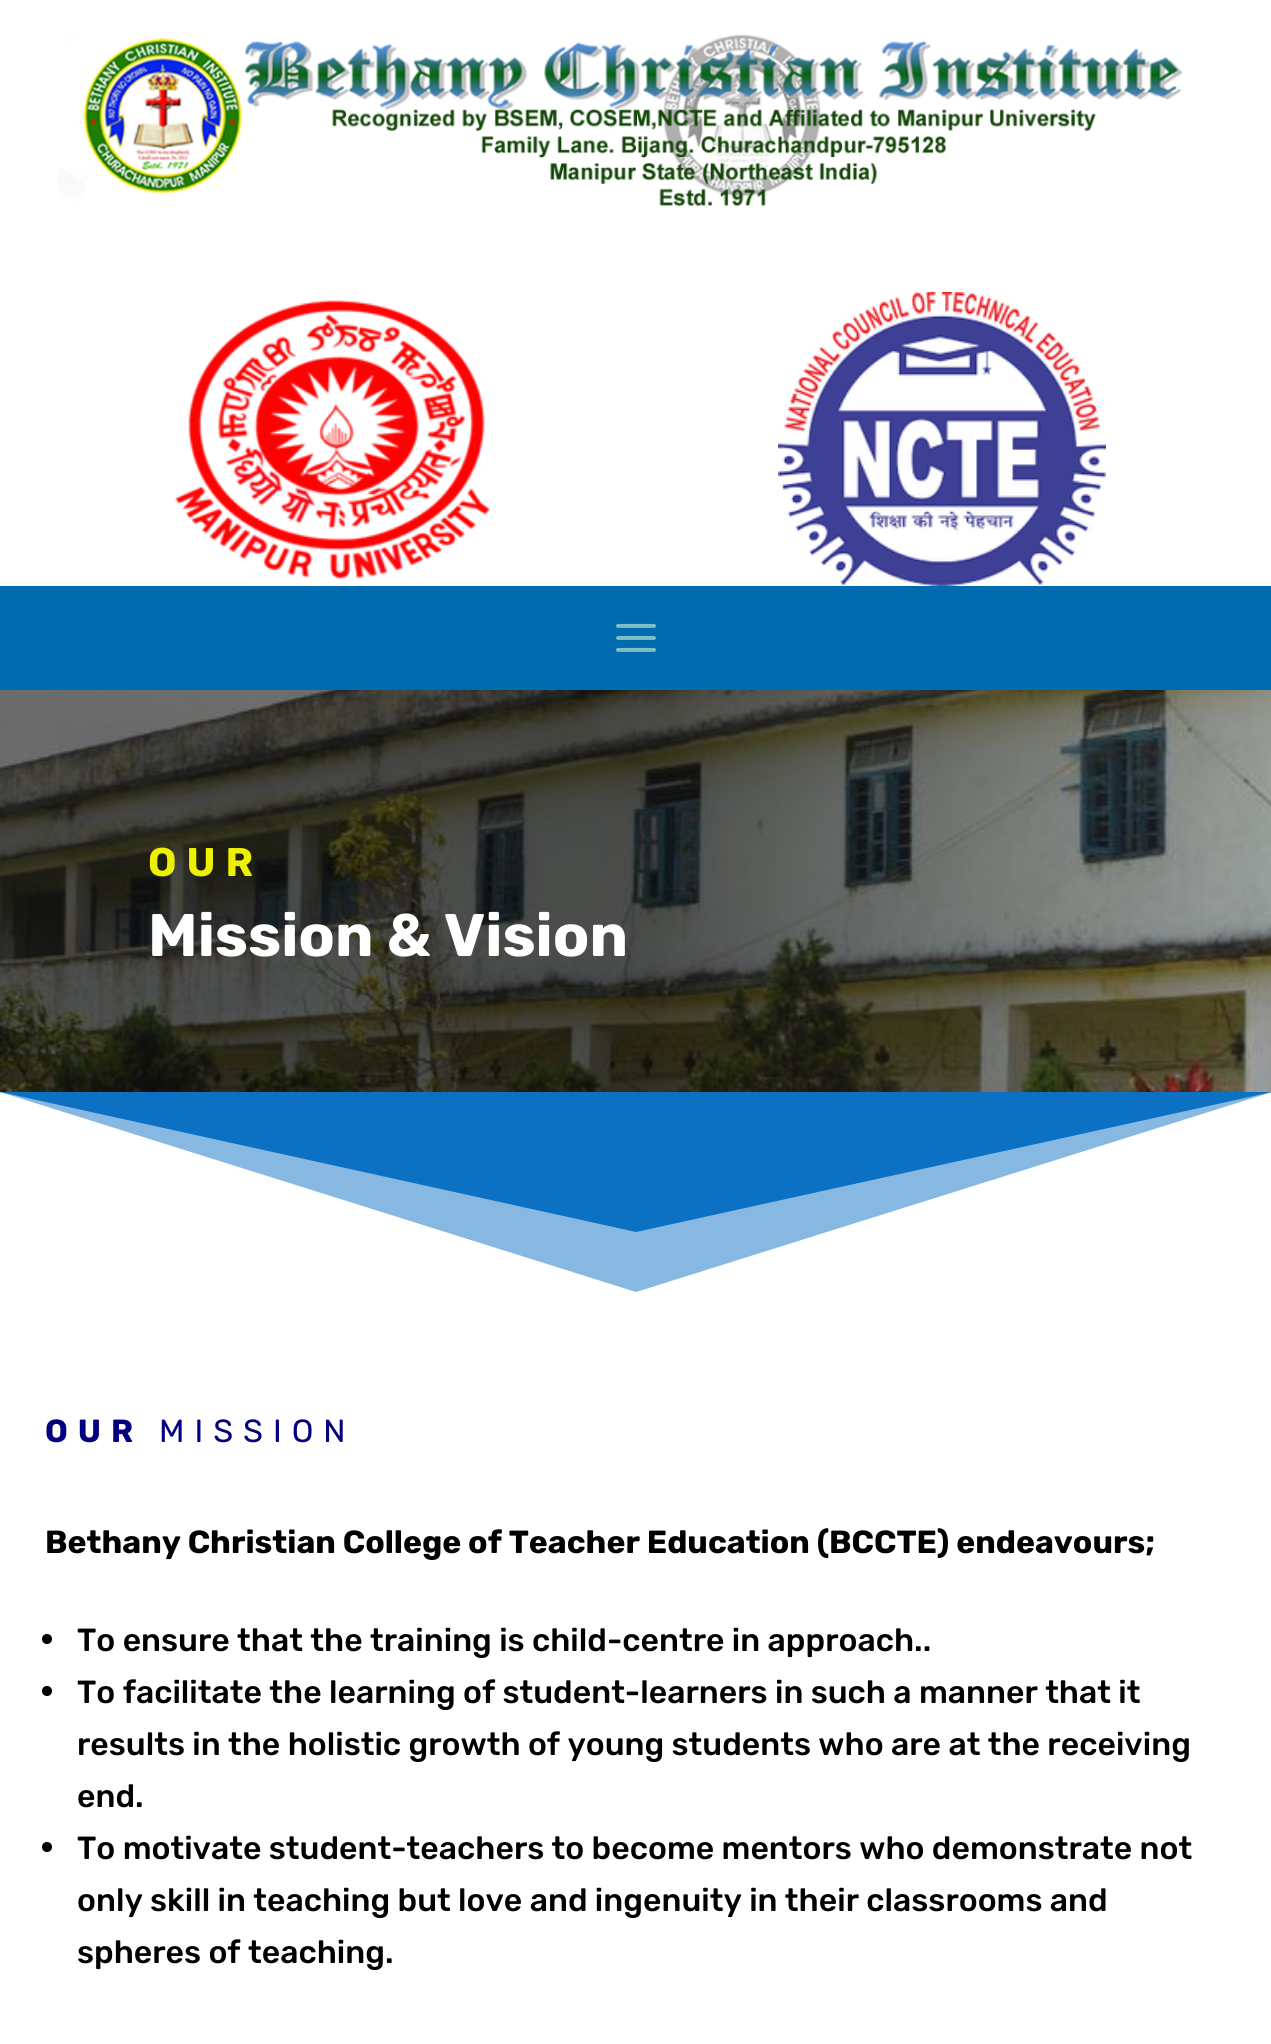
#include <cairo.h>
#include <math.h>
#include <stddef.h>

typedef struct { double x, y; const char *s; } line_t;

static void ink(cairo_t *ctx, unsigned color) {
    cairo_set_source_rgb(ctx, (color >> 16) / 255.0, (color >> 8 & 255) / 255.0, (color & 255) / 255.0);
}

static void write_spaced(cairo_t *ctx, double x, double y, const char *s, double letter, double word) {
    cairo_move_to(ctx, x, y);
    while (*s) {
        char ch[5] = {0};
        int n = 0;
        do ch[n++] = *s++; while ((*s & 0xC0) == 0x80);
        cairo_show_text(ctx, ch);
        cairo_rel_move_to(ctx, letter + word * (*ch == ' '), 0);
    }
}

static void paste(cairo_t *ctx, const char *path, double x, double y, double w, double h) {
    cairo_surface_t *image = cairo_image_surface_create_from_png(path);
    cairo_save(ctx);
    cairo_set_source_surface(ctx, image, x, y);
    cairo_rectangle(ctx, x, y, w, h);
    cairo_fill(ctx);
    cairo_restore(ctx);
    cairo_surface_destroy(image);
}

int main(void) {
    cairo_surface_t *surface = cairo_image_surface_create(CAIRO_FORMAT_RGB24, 1271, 2044);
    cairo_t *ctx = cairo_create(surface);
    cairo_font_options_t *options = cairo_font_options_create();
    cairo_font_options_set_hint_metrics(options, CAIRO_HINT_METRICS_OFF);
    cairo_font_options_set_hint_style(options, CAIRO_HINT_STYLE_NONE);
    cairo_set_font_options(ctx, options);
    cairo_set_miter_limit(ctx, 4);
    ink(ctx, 0xFFFFFF);
    cairo_paint(ctx);
    paste(ctx, "media/1.png", 58, 34, 1125, 173);
    paste(ctx, "media/2.png", 175, 300, 316, 280);
    paste(ctx, "media/3.png", 778, 292, 328, 294);
    ink(ctx, 0x006BAF);
    cairo_rectangle(ctx, 0, 586, 1271, 104);
    cairo_fill(ctx);
    paste(ctx, "media/4.png", 616, 623, 40, 29);
    paste(ctx, "media/5.png", 0, 690, 1271, 402);
    cairo_select_font_face(ctx, "Rubik Light", CAIRO_FONT_SLANT_NORMAL, CAIRO_FONT_WEIGHT_NORMAL);
    cairo_set_font_size(ctx, 40);
    ink(ctx, 0xEDF000);
    write_spaced(ctx, 148, 876, "OUR", 10, 0);
    cairo_set_font_size(ctx, 60);
    ink(ctx, 0xFFFFFF);
    cairo_move_to(ctx, 148, 956);
    cairo_show_text(ctx, "Mission & Vision");
    ink(ctx, 0x86B8E1);
    cairo_new_path(ctx);
    cairo_move_to(ctx, 636, 1292);
    cairo_line_to(ctx, 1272, 1092);
    cairo_line_to(ctx, 0, 1092);
    cairo_close_path(ctx);
    cairo_fill(ctx);
    ink(ctx, 0x0C71C3);
    cairo_new_path(ctx);
    cairo_move_to(ctx, 636, 1232);
    cairo_line_to(ctx, 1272, 1092);
    cairo_line_to(ctx, 0, 1092);
    cairo_close_path(ctx);
    cairo_fill(ctx);
    cairo_set_font_size(ctx, 32);
    ink(ctx, 0x000080);
    write_spaced(ctx, 45, 1442, "OUR", 10, 0);
    cairo_select_font_face(ctx, "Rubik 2 Light", CAIRO_FONT_SLANT_NORMAL, CAIRO_FONT_WEIGHT_NORMAL);
    write_spaced(ctx, 159, 1442, "MISSION", 10, 0);
    cairo_select_font_face(ctx, "Rubik Light", CAIRO_FONT_SLANT_NORMAL, CAIRO_FONT_WEIGHT_NORMAL);
    ink(ctx, 0x000000);
    cairo_move_to(ctx, 45, 1553);
    cairo_show_text(ctx, "Bethany Christian College of Teacher Education (BCCTE) endeavours;");
    cairo_new_path(ctx);
    cairo_arc(ctx, 47, 1639, 5, 0, 2 * M_PI);
    cairo_fill(ctx);
    cairo_select_font_face(ctx, "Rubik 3 Light", CAIRO_FONT_SLANT_NORMAL, CAIRO_FONT_WEIGHT_NORMAL);
    cairo_move_to(ctx, 77, 1651);
    cairo_show_text(ctx, "To ensure that the training is child-centre in approach..");
    cairo_new_path(ctx);
    cairo_arc(ctx, 47, 1691, 5, 0, 2 * M_PI);
    cairo_fill(ctx);
    {
        static const line_t items[] = {
            {77, 1703, "To facilitate the learning of student-learners in such a manner that it"},
            {77, 1755, "results in the holistic growth of young students who are at the receiving"},
            {77, 1807, "end."},
        };
        for (size_t i = 0; i < sizeof items / sizeof *items; i++) {
            cairo_move_to(ctx, items[i].x, items[i].y);
            cairo_show_text(ctx, items[i].s);
        }
    }
    cairo_new_path(ctx);
    cairo_arc(ctx, 47, 1847, 5, 0, 2 * M_PI);
    cairo_fill(ctx);
    {
        static const line_t items[] = {
            {77, 1859, "To motivate student-teachers to become mentors who demonstrate not"},
            {77, 1911, "only skill in teaching but love and ingenuity in their classrooms and"},
            {77, 1963, "spheres of teaching."},
        };
        for (size_t i = 0; i < sizeof items / sizeof *items; i++) {
            cairo_move_to(ctx, items[i].x, items[i].y);
            cairo_show_text(ctx, items[i].s);
        }
    }
    cairo_surface_write_to_png(surface, "image.png");
    cairo_font_options_destroy(options);
    cairo_destroy(ctx);
    cairo_surface_destroy(surface);
    return 0;
}
